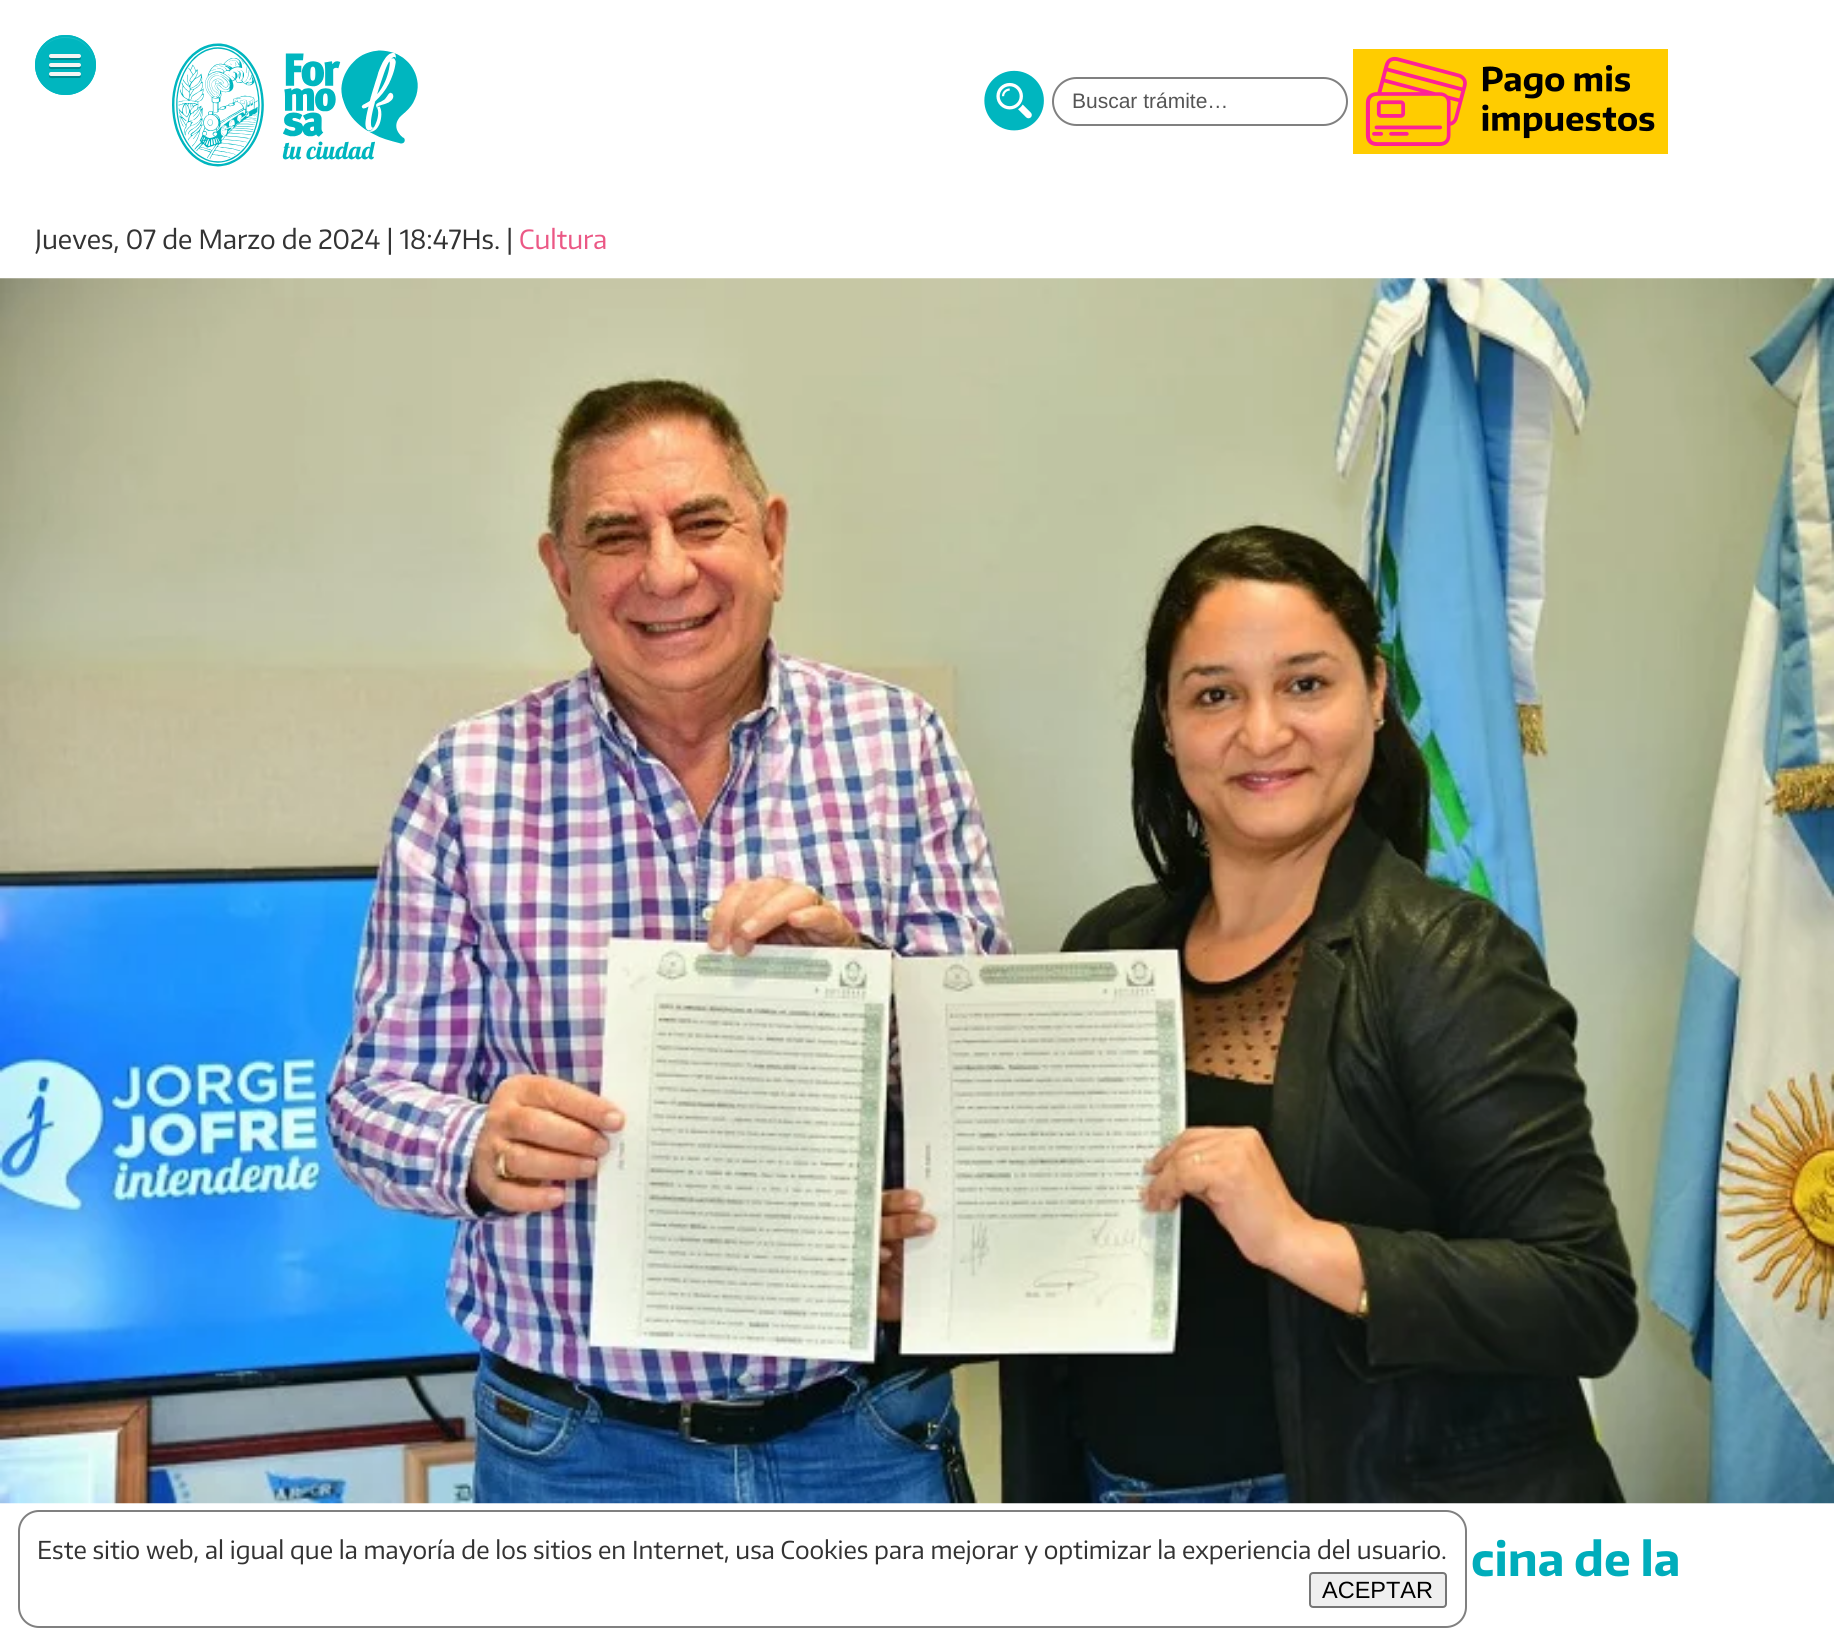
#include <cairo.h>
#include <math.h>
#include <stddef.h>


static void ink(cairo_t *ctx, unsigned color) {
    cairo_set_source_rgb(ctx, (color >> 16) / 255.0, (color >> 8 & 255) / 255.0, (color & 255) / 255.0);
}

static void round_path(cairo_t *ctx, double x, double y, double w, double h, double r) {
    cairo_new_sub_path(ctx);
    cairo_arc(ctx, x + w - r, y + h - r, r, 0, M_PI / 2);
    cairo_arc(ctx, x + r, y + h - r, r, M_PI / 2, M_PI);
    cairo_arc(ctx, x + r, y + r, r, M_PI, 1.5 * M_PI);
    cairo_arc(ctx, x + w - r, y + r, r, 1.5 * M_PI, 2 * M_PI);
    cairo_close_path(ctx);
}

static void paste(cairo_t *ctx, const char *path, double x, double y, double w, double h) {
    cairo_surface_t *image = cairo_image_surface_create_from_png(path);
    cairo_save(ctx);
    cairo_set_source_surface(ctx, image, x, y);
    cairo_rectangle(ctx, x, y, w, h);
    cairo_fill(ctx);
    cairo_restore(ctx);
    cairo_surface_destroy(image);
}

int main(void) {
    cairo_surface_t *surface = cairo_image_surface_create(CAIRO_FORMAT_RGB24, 1834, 1645);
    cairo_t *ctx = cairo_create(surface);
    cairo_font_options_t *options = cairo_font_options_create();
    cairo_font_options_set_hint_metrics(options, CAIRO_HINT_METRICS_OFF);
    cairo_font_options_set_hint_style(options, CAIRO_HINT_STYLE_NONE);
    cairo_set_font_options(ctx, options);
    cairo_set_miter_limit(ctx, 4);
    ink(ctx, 0xFFFFFF);
    cairo_paint(ctx);
    ink(ctx, 0x00B6BF);
    round_path(ctx, 35, 35, 61, 60, 30);
    cairo_fill(ctx);
    ink(ctx, 0x1ABDC5);
    cairo_new_path(ctx);
    cairo_move_to(ctx, 65, 38);
    cairo_curve_to(ctx, 90, 38, 99, 62, 92, 78);
    cairo_curve_to(ctx, 95, 72, 96, 66, 94, 59);
    cairo_curve_to(ctx, 89, 30, 45, 29, 38, 58);
    cairo_curve_to(ctx, 41, 47, 51, 38, 65, 38);
    cairo_close_path(ctx);
    cairo_fill(ctx);
    round_path(ctx, 36, 36, 59, 58, 29);
    ink(ctx, 0x00B6BF);
    cairo_stroke(ctx);
    ink(ctx, 0x00898F);
    cairo_new_path(ctx);
    cairo_move_to(ctx, 49.5, 57);
    cairo_curve_to(ctx, 47, 61, 55, 60, 55.5, 60);
    cairo_line_to(ctx, 65, 60);
    cairo_curve_to(ctx, 67.5, 60, 79, 60.5, 80.5, 59.5);
    cairo_curve_to(ctx, 81, 58.5, 81, 57.5, 80.5, 56.5);
    cairo_line_to(ctx, 79.5, 57.5);
    cairo_line_to(ctx, 50.5, 57.5);
    cairo_close_path(ctx);
    cairo_fill(ctx);
    ink(ctx, 0xF5F5F5);
    round_path(ctx, 49, 54, 32, 4, 2);
    cairo_fill(ctx);
    ink(ctx, 0x00898F);
    cairo_new_path(ctx);
    cairo_move_to(ctx, 49.5, 66);
    cairo_line_to(ctx, 49, 67.5);
    cairo_curve_to(ctx, 49.5, 70, 54.5, 69, 55.5, 69);
    cairo_line_to(ctx, 74.5, 69);
    cairo_curve_to(ctx, 76, 69, 81, 70, 81, 67);
    cairo_line_to(ctx, 80.5, 65.5);
    cairo_curve_to(ctx, 80, 66, 79.5, 66.5, 79, 66.5);
    cairo_line_to(ctx, 50.5, 66.5);
    cairo_close_path(ctx);
    cairo_fill(ctx);
    ink(ctx, 0xF5F5F5);
    round_path(ctx, 49, 63, 32, 4, 2);
    cairo_fill(ctx);
    ink(ctx, 0x00898F);
    cairo_new_path(ctx);
    cairo_move_to(ctx, 49.5, 74.5);
    cairo_curve_to(ctx, 49, 75, 49, 76, 49, 76.5);
    cairo_curve_to(ctx, 49.5, 79, 54.5, 78, 55.5, 78);
    cairo_line_to(ctx, 79, 78);
    cairo_curve_to(ctx, 81, 78, 81.5, 75.5, 80, 74.5);
    cairo_line_to(ctx, 79, 75);
    cairo_line_to(ctx, 50.5, 75);
    cairo_close_path(ctx);
    cairo_fill(ctx);
    ink(ctx, 0xF5F5F5);
    round_path(ctx, 49, 72, 32, 4, 2);
    cairo_fill(ctx);
    paste(ctx, "media/1.png", 172, 43, 246, 124);
    paste(ctx, "media/2.png", 984, 70, 60, 61);
    round_path(ctx, 1053, 78, 294, 47, 23.5);
    ink(ctx, 0x808080);
    cairo_stroke(ctx);
    cairo_select_font_face(ctx, "Liberation Sans", CAIRO_FONT_SLANT_NORMAL, CAIRO_FONT_WEIGHT_NORMAL);
    cairo_set_font_size(ctx, 21);
    ink(ctx, 0x555555);
    cairo_move_to(ctx, 1072, 108);
    cairo_show_text(ctx, "Buscar trámite…");
    paste(ctx, "media/3.png", 1353, 49, 315, 105);
    cairo_select_font_face(ctx, "Encode Sans", CAIRO_FONT_SLANT_NORMAL, CAIRO_FONT_WEIGHT_NORMAL);
    cairo_set_font_size(ctx, 26.25);
    ink(ctx, 0x333333);
    cairo_move_to(ctx, 35, 249);
    cairo_show_text(ctx, "Jueves, 07 de Marzo de 2024 | 18:47Hs. |");
    ink(ctx, 0xEB5885);
    cairo_move_to(ctx, 519, 249);
    cairo_show_text(ctx, "Cultura");
    paste(ctx, "media/4.png", 0, 278, 1834, 1226);
    cairo_select_font_face(ctx, "Encode Sans", CAIRO_FONT_SLANT_NORMAL, CAIRO_FONT_WEIGHT_BOLD);
    cairo_set_font_size(ctx, 45.5);
    ink(ctx, 0x00ADBB);
    cairo_move_to(ctx, 1471, 1576);
    cairo_show_text(ctx, "cina de la");
    round_path(ctx, 19, 1511, 1447, 116, 20);
    ink(ctx, 0x808080);
    cairo_stroke(ctx);
    cairo_select_font_face(ctx, "Encode Sans", CAIRO_FONT_SLANT_NORMAL, CAIRO_FONT_WEIGHT_NORMAL);
    cairo_set_font_size(ctx, 24.5);
    ink(ctx, 0x333333);
    cairo_move_to(ctx, 37, 1559);
    cairo_show_text(ctx, "Este sitio web, al igual que la mayoría de los sitios en Internet, usa Cookies para mejorar y optimizar la experiencia del usuario.");
    ink(ctx, 0xEFEFEF);
    round_path(ctx, 1310, 1573, 136, 34, 3);
    cairo_fill_preserve(ctx);
    ink(ctx, 0x767676);
    cairo_stroke(ctx);
    cairo_select_font_face(ctx, "Liberation Sans", CAIRO_FONT_SLANT_NORMAL, CAIRO_FONT_WEIGHT_NORMAL);
    cairo_set_font_size(ctx, 23.5);
    ink(ctx, 0x000000);
    cairo_move_to(ctx, 1322, 1598);
    cairo_show_text(ctx, "ACEPTAR");
    cairo_surface_write_to_png(surface, "image.png");
    cairo_font_options_destroy(options);
    cairo_destroy(ctx);
    cairo_surface_destroy(surface);
    return 0;
}
